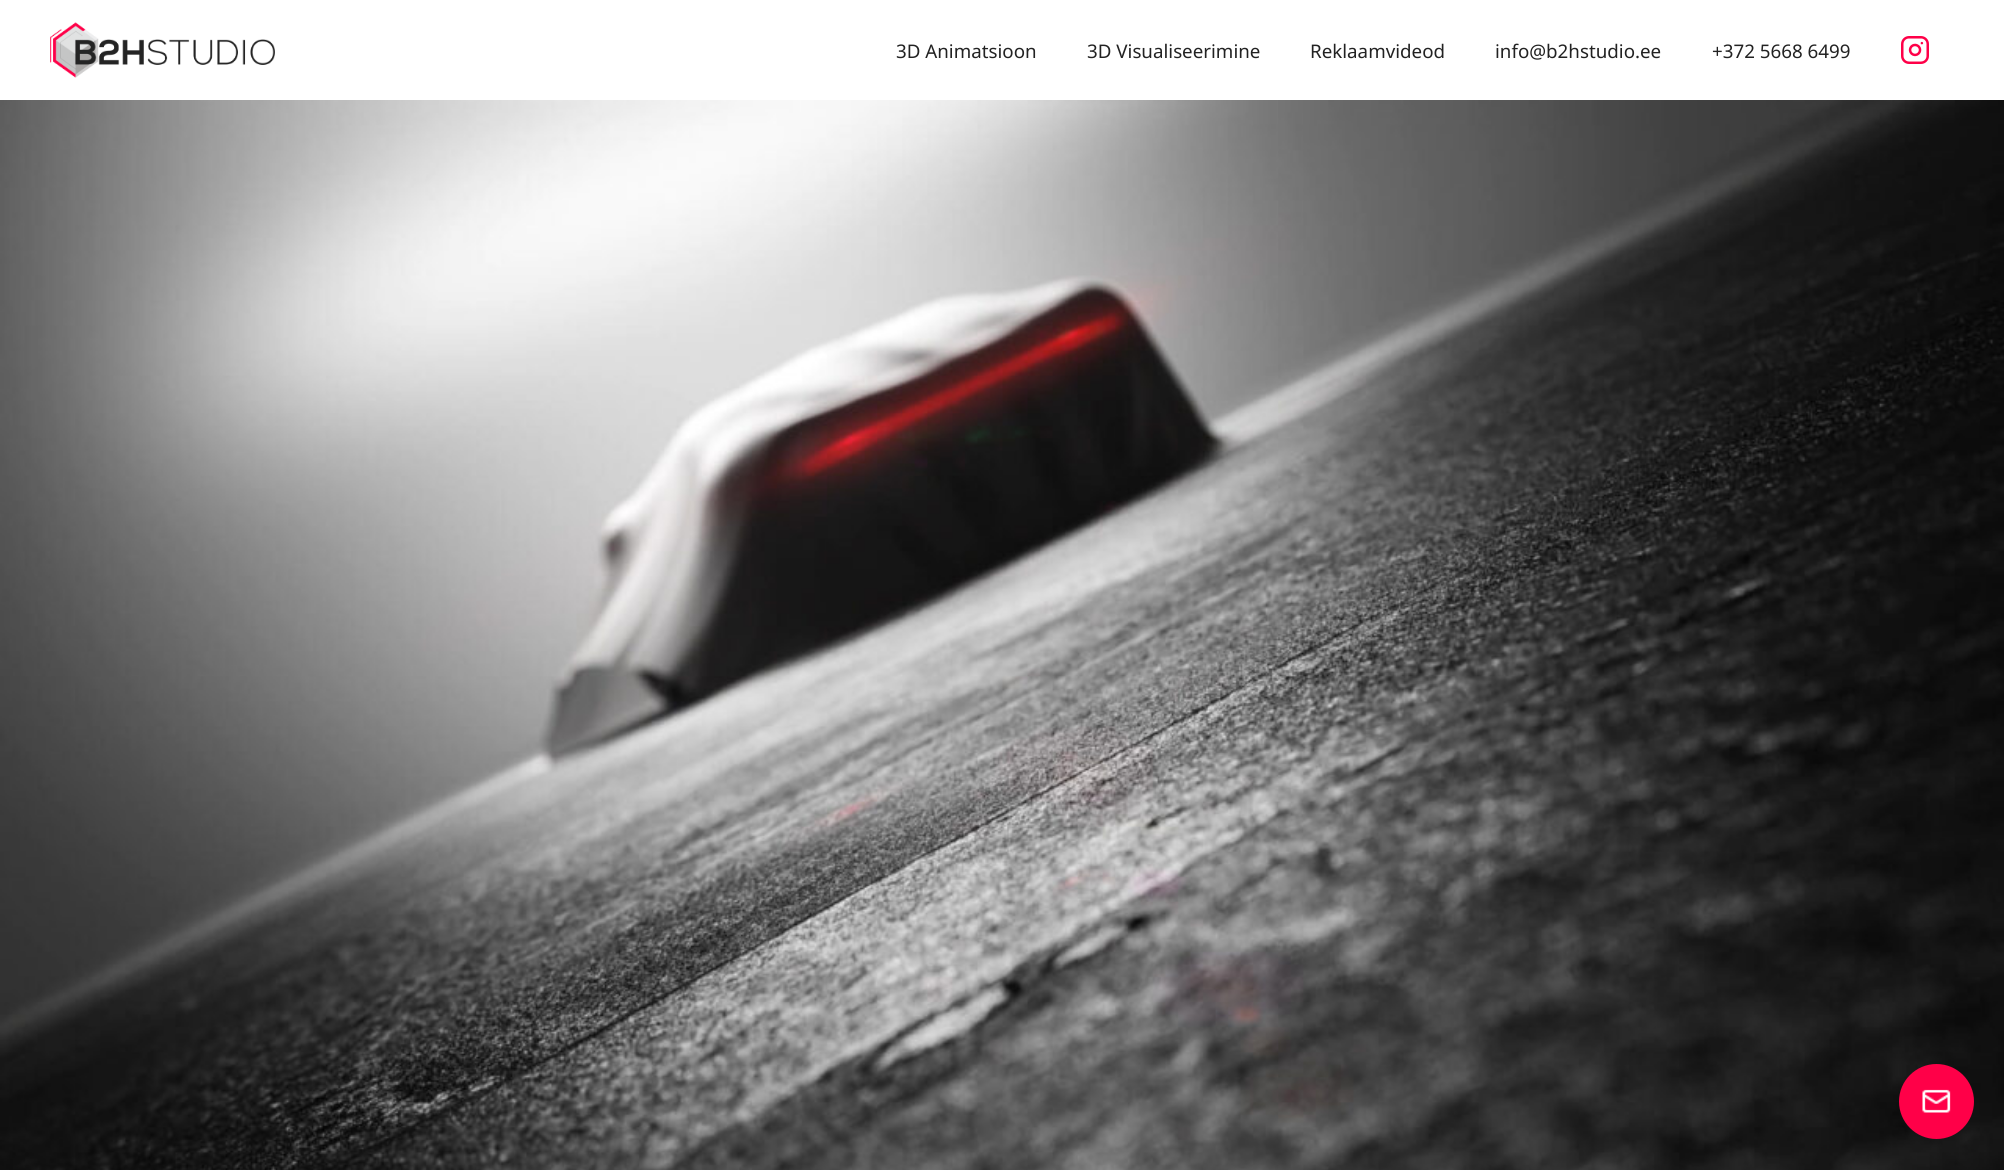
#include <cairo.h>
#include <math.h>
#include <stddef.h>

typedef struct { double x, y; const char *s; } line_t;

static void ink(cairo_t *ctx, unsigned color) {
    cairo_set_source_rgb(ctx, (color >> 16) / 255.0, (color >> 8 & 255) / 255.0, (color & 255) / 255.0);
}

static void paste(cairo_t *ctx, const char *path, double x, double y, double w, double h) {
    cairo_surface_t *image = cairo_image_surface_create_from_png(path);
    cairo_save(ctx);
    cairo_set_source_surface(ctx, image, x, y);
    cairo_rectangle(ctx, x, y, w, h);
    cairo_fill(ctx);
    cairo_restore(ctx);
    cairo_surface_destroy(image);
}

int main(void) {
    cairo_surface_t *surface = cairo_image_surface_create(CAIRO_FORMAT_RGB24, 2004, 1170);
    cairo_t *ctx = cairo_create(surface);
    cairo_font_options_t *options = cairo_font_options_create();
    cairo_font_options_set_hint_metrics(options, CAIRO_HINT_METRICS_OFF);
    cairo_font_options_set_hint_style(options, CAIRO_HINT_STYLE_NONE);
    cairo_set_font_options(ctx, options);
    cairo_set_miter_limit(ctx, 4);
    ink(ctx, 0xFFFFFF);
    cairo_paint(ctx);
    paste(ctx, "media/1.png", 50, 22, 225, 56);
    cairo_select_font_face(ctx, "Noto Sans", CAIRO_FONT_SLANT_NORMAL, CAIRO_FONT_WEIGHT_NORMAL);
    cairo_set_font_size(ctx, 18.75);
    ink(ctx, 0x222222);
    {
        static const line_t items[] = {
            {896, 58, "3D Animatsioon"},
            {1087, 58, "3D Visualiseerimine"},
            {1310, 58, "Reklaamvideod"},
            {1495, 58, "info@b2hstudio.ee"},
            {1712, 58, "+372 5668 6499"},
        };
        for (size_t i = 0; i < sizeof items / sizeof *items; i++) {
            cairo_move_to(ctx, items[i].x, items[i].y);
            cairo_show_text(ctx, items[i].s);
        }
    }
    paste(ctx, "media/2.png", 1901, 36, 28, 28);
    paste(ctx, "media/3.png", 0, 100, 2004, 1070);
    ink(ctx, 0xFF0048);
    cairo_arc(ctx, 1936.5, 1101.5, 37.5, 0, 2 * M_PI);
    cairo_fill(ctx);
    paste(ctx, "media/4.png", 1922, 1089, 29, 24);
    cairo_surface_write_to_png(surface, "image.png");
    cairo_font_options_destroy(options);
    cairo_destroy(ctx);
    cairo_surface_destroy(surface);
    return 0;
}
